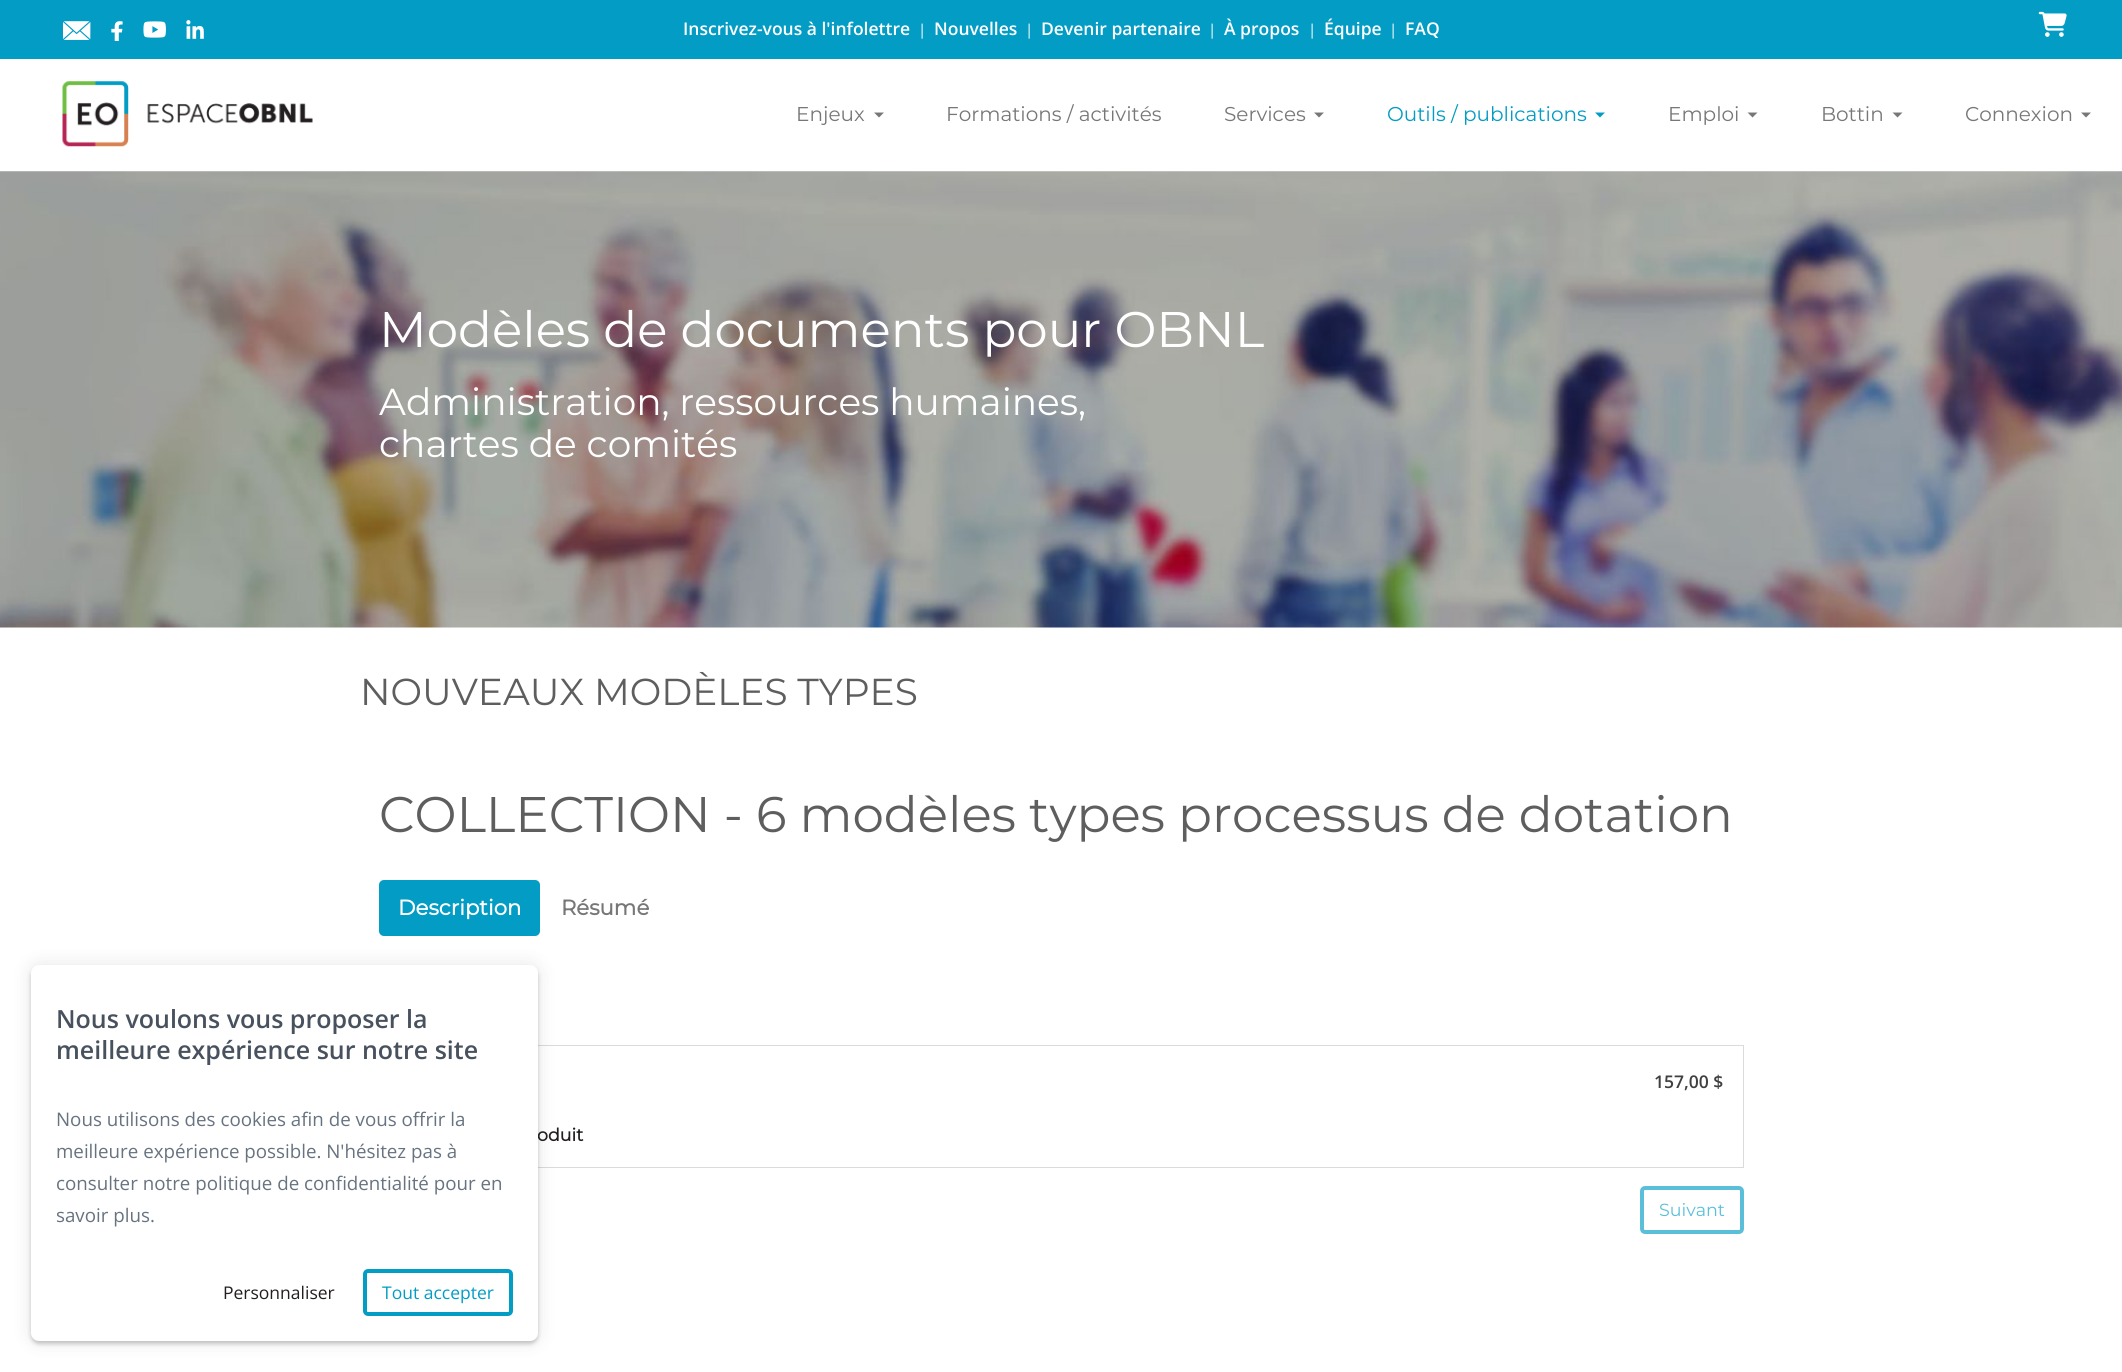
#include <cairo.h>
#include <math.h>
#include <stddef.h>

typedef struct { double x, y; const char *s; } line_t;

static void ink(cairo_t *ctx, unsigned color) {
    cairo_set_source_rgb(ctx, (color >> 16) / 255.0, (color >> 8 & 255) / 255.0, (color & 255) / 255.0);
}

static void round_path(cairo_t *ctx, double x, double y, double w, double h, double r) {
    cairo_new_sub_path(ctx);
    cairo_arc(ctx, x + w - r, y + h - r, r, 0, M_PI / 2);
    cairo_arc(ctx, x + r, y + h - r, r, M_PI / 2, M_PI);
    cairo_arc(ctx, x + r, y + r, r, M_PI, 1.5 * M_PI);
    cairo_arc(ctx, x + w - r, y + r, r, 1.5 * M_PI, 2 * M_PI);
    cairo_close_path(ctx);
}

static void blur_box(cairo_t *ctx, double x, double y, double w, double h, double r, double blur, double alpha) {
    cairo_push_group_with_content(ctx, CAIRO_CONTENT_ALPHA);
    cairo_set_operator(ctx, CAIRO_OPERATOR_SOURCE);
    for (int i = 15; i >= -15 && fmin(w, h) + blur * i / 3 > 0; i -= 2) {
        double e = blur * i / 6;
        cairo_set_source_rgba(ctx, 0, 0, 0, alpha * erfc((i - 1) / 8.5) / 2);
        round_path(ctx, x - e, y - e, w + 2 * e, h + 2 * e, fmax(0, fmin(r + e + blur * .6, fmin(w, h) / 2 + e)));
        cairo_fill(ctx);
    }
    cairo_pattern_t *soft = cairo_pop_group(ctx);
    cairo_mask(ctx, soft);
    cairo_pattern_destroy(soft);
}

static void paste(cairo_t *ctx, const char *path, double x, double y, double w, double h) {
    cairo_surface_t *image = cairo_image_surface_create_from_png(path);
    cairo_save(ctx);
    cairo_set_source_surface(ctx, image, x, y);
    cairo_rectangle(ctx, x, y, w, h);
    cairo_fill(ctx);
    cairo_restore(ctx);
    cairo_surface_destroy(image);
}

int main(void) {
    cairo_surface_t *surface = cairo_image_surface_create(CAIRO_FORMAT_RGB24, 2122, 1372);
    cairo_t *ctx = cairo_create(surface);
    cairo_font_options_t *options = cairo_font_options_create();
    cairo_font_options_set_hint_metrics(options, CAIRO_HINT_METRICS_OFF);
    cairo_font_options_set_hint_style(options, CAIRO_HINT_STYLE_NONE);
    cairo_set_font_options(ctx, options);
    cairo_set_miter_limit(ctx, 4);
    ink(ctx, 0xFFFFFF);
    cairo_paint(ctx);
    ink(ctx, 0x039CC4);
    round_path(ctx, 379, 880, 161, 56, 5);
    cairo_fill(ctx);
    cairo_rectangle(ctx, 379.5, 1045.5, 1364, 122);
    ink(ctx, 0xDBDBDB);
    cairo_set_line_width(ctx, 1);
    cairo_stroke(ctx);
    ink(ctx, 0x000000);
    blur_box(ctx, 31, 965, 507, 376, 8, 9.5, 0.1);
    blur_box(ctx, 31, 968, 507, 376, 8, 2, 0.2);
    cairo_select_font_face(ctx, "Montserrat", CAIRO_FONT_SLANT_NORMAL, CAIRO_FONT_WEIGHT_BOLD);
    cairo_set_font_size(ctx, 17.5);
    ink(ctx, 0x231F20);
    cairo_move_to(ctx, 537, 1141);
    cairo_show_text(ctx, "oduit");
    ink(ctx, 0xFFFFFF);
    round_path(ctx, 31, 965, 507, 376, 8);
    cairo_fill(ctx);
    cairo_select_font_face(ctx, "Open Sans SemiBold", CAIRO_FONT_SLANT_NORMAL, CAIRO_FONT_WEIGHT_NORMAL);
    cairo_set_font_size(ctx, 25);
    ink(ctx, 0x48525E);
    cairo_move_to(ctx, 56, 1028);
    cairo_show_text(ctx, "Nous voulons vous proposer la");
    cairo_move_to(ctx, 56, 1059);
    cairo_show_text(ctx, "meilleure expérience sur notre site");
    cairo_select_font_face(ctx, "Open Sans", CAIRO_FONT_SLANT_NORMAL, CAIRO_FONT_WEIGHT_NORMAL);
    cairo_set_font_size(ctx, 18.75);
    ink(ctx, 0x677380);
    {
        static const line_t items[] = {
            {56, 1126, "Nous utilisons des cookies afin de vous offrir la"},
            {56, 1158, "meilleure expérience possible. N'hésitez pas à"},
            {56, 1190, "consulter notre politique de confidentialité pour en"},
            {56, 1222, "savoir plus."},
        };
        for (size_t i = 0; i < sizeof items / sizeof *items; i++) {
            cairo_move_to(ctx, items[i].x, items[i].y);
            cairo_show_text(ctx, items[i].s);
        }
    }
    cairo_set_font_size(ctx, 17.5);
    ink(ctx, 0x231F20);
    cairo_move_to(ctx, 223, 1299);
    cairo_show_text(ctx, "Personnaliser");
    round_path(ctx, 365, 1271, 146, 43, 3);
    ink(ctx, 0x039CC4);
    cairo_set_line_width(ctx, 4);
    cairo_stroke(ctx);
    cairo_move_to(ctx, 382, 1299);
    cairo_show_text(ctx, "Tout accepter");
    cairo_rectangle(ctx, 0, 0, 2122, 59);
    cairo_fill(ctx);
    paste(ctx, "media/1.png", 63, 21, 28, 19);
    paste(ctx, "media/2.png", 111, 21, 12, 20);
    paste(ctx, "media/3.png", 143, 21, 23, 17);
    paste(ctx, "media/4.png", 186, 20, 18, 19);
    cairo_select_font_face(ctx, "Open Sans SemiBold", CAIRO_FONT_SLANT_NORMAL, CAIRO_FONT_WEIGHT_NORMAL);
    ink(ctx, 0xFFFFFF);
    cairo_move_to(ctx, 683, 35);
    cairo_show_text(ctx, "Inscrivez-vous à l'infolettre");
    cairo_select_font_face(ctx, "Open Sans", CAIRO_FONT_SLANT_NORMAL, CAIRO_FONT_WEIGHT_NORMAL);
    cairo_set_font_size(ctx, 15);
    cairo_move_to(ctx, 918, 35);
    cairo_show_text(ctx, "|");
    cairo_select_font_face(ctx, "Open Sans SemiBold", CAIRO_FONT_SLANT_NORMAL, CAIRO_FONT_WEIGHT_NORMAL);
    cairo_set_font_size(ctx, 17.5);
    cairo_move_to(ctx, 934, 35);
    cairo_show_text(ctx, "Nouvelles");
    cairo_select_font_face(ctx, "Open Sans", CAIRO_FONT_SLANT_NORMAL, CAIRO_FONT_WEIGHT_NORMAL);
    cairo_set_font_size(ctx, 15);
    cairo_move_to(ctx, 1025, 35);
    cairo_show_text(ctx, "|");
    cairo_select_font_face(ctx, "Open Sans SemiBold", CAIRO_FONT_SLANT_NORMAL, CAIRO_FONT_WEIGHT_NORMAL);
    cairo_set_font_size(ctx, 17.5);
    cairo_move_to(ctx, 1041, 35);
    cairo_show_text(ctx, "Devenir partenaire");
    cairo_select_font_face(ctx, "Open Sans", CAIRO_FONT_SLANT_NORMAL, CAIRO_FONT_WEIGHT_NORMAL);
    cairo_set_font_size(ctx, 15);
    cairo_move_to(ctx, 1208, 35);
    cairo_show_text(ctx, "|");
    cairo_select_font_face(ctx, "Open Sans SemiBold", CAIRO_FONT_SLANT_NORMAL, CAIRO_FONT_WEIGHT_NORMAL);
    cairo_set_font_size(ctx, 17.5);
    cairo_move_to(ctx, 1224, 35);
    cairo_show_text(ctx, "À propos");
    cairo_select_font_face(ctx, "Open Sans", CAIRO_FONT_SLANT_NORMAL, CAIRO_FONT_WEIGHT_NORMAL);
    cairo_set_font_size(ctx, 15);
    cairo_move_to(ctx, 1308, 35);
    cairo_show_text(ctx, "|");
    cairo_select_font_face(ctx, "Open Sans SemiBold", CAIRO_FONT_SLANT_NORMAL, CAIRO_FONT_WEIGHT_NORMAL);
    cairo_set_font_size(ctx, 17.5);
    cairo_move_to(ctx, 1324, 35);
    cairo_show_text(ctx, "Équipe");
    cairo_select_font_face(ctx, "Open Sans", CAIRO_FONT_SLANT_NORMAL, CAIRO_FONT_WEIGHT_NORMAL);
    cairo_set_font_size(ctx, 15);
    cairo_move_to(ctx, 1389, 35);
    cairo_show_text(ctx, "|");
    cairo_select_font_face(ctx, "Open Sans SemiBold", CAIRO_FONT_SLANT_NORMAL, CAIRO_FONT_WEIGHT_NORMAL);
    cairo_set_font_size(ctx, 17.5);
    cairo_move_to(ctx, 1405, 35);
    cairo_show_text(ctx, "FAQ");
    paste(ctx, "media/5.png", 2038, 11, 29, 26);
    paste(ctx, "media/6.png", 62, 81, 251, 66);
    cairo_select_font_face(ctx, "Montserrat Thin", CAIRO_FONT_SLANT_NORMAL, CAIRO_FONT_WEIGHT_NORMAL);
    cairo_set_font_size(ctx, 20);
    ink(ctx, 0x777777);
    cairo_move_to(ctx, 796, 121);
    cairo_show_text(ctx, "Enjeux");
    cairo_new_path(ctx);
    cairo_move_to(ctx, 874, 112.5);
    cairo_line_to(ctx, 884, 112.5);
    cairo_line_to(ctx, 879, 117.5);
    cairo_close_path(ctx);
    cairo_fill(ctx);
    cairo_move_to(ctx, 946, 121);
    cairo_show_text(ctx, "Formations / activités");
    cairo_move_to(ctx, 1224, 121);
    cairo_show_text(ctx, "Services");
    cairo_new_path(ctx);
    cairo_move_to(ctx, 1314, 112.5);
    cairo_line_to(ctx, 1324, 112.5);
    cairo_line_to(ctx, 1319, 117.5);
    cairo_close_path(ctx);
    cairo_fill(ctx);
    ink(ctx, 0x039CC4);
    cairo_move_to(ctx, 1387, 121);
    cairo_show_text(ctx, "Outils / publications");
    cairo_new_path(ctx);
    cairo_move_to(ctx, 1595, 112.5);
    cairo_line_to(ctx, 1605, 112.5);
    cairo_line_to(ctx, 1600, 117.5);
    cairo_close_path(ctx);
    cairo_fill(ctx);
    ink(ctx, 0x777777);
    cairo_move_to(ctx, 1668, 121);
    cairo_show_text(ctx, "Emploi");
    cairo_new_path(ctx);
    cairo_move_to(ctx, 1747.5, 112.5);
    cairo_line_to(ctx, 1757.5, 112.5);
    cairo_line_to(ctx, 1752.5, 117.5);
    cairo_close_path(ctx);
    cairo_fill(ctx);
    cairo_move_to(ctx, 1821, 121);
    cairo_show_text(ctx, "Bottin");
    cairo_new_path(ctx);
    cairo_move_to(ctx, 1892.5, 112.5);
    cairo_line_to(ctx, 1902.5, 112.5);
    cairo_line_to(ctx, 1897.5, 117.5);
    cairo_close_path(ctx);
    cairo_fill(ctx);
    cairo_move_to(ctx, 1965, 121);
    cairo_show_text(ctx, "Connexion");
    cairo_new_path(ctx);
    cairo_move_to(ctx, 2081, 112.5);
    cairo_line_to(ctx, 2091, 112.5);
    cairo_line_to(ctx, 2086, 117.5);
    cairo_close_path(ctx);
    cairo_fill(ctx);
    paste(ctx, "media/7.png", 0, 171, 2122, 457);
    cairo_set_font_size(ctx, 50);
    ink(ctx, 0xFFFFFF);
    cairo_move_to(ctx, 379, 347);
    cairo_show_text(ctx, "Modèles de documents pour OBNL");
    cairo_set_font_size(ctx, 37.5);
    cairo_move_to(ctx, 379, 415);
    cairo_show_text(ctx, "Administration, ressources humaines,");
    cairo_move_to(ctx, 379, 457);
    cairo_show_text(ctx, "chartes de comités");
    ink(ctx, 0x5E5E5E);
    cairo_move_to(ctx, 360, 705);
    cairo_show_text(ctx, "NOUVEAUX MODÈLES TYPES");
    cairo_set_font_size(ctx, 50);
    cairo_move_to(ctx, 379, 832);
    cairo_show_text(ctx, "COLLECTION - 6 modèles types processus de dotation");
    cairo_select_font_face(ctx, "Montserrat", CAIRO_FONT_SLANT_NORMAL, CAIRO_FONT_WEIGHT_BOLD);
    cairo_set_font_size(ctx, 21.25);
    ink(ctx, 0xFFFFFF);
    cairo_move_to(ctx, 398, 915);
    cairo_show_text(ctx, "Description");
    ink(ctx, 0x777777);
    cairo_move_to(ctx, 561, 915);
    cairo_show_text(ctx, "Résumé");
    cairo_select_font_face(ctx, "Open Sans SemiBold", CAIRO_FONT_SLANT_NORMAL, CAIRO_FONT_WEIGHT_NORMAL);
    cairo_set_font_size(ctx, 17.5);
    ink(ctx, 0x3F403F);
    cairo_move_to(ctx, 1654, 1088);
    cairo_show_text(ctx, "157,00 $");
    round_path(ctx, 1642, 1188, 100, 44, 3);
    ink(ctx, 0x5BBFD9);
    cairo_stroke(ctx);
    cairo_select_font_face(ctx, "Montserrat Thin", CAIRO_FONT_SLANT_NORMAL, CAIRO_FONT_WEIGHT_NORMAL);
    cairo_move_to(ctx, 1659, 1216);
    cairo_show_text(ctx, "Suivant");
    cairo_surface_write_to_png(surface, "image.png");
    cairo_font_options_destroy(options);
    cairo_destroy(ctx);
    cairo_surface_destroy(surface);
    return 0;
}
